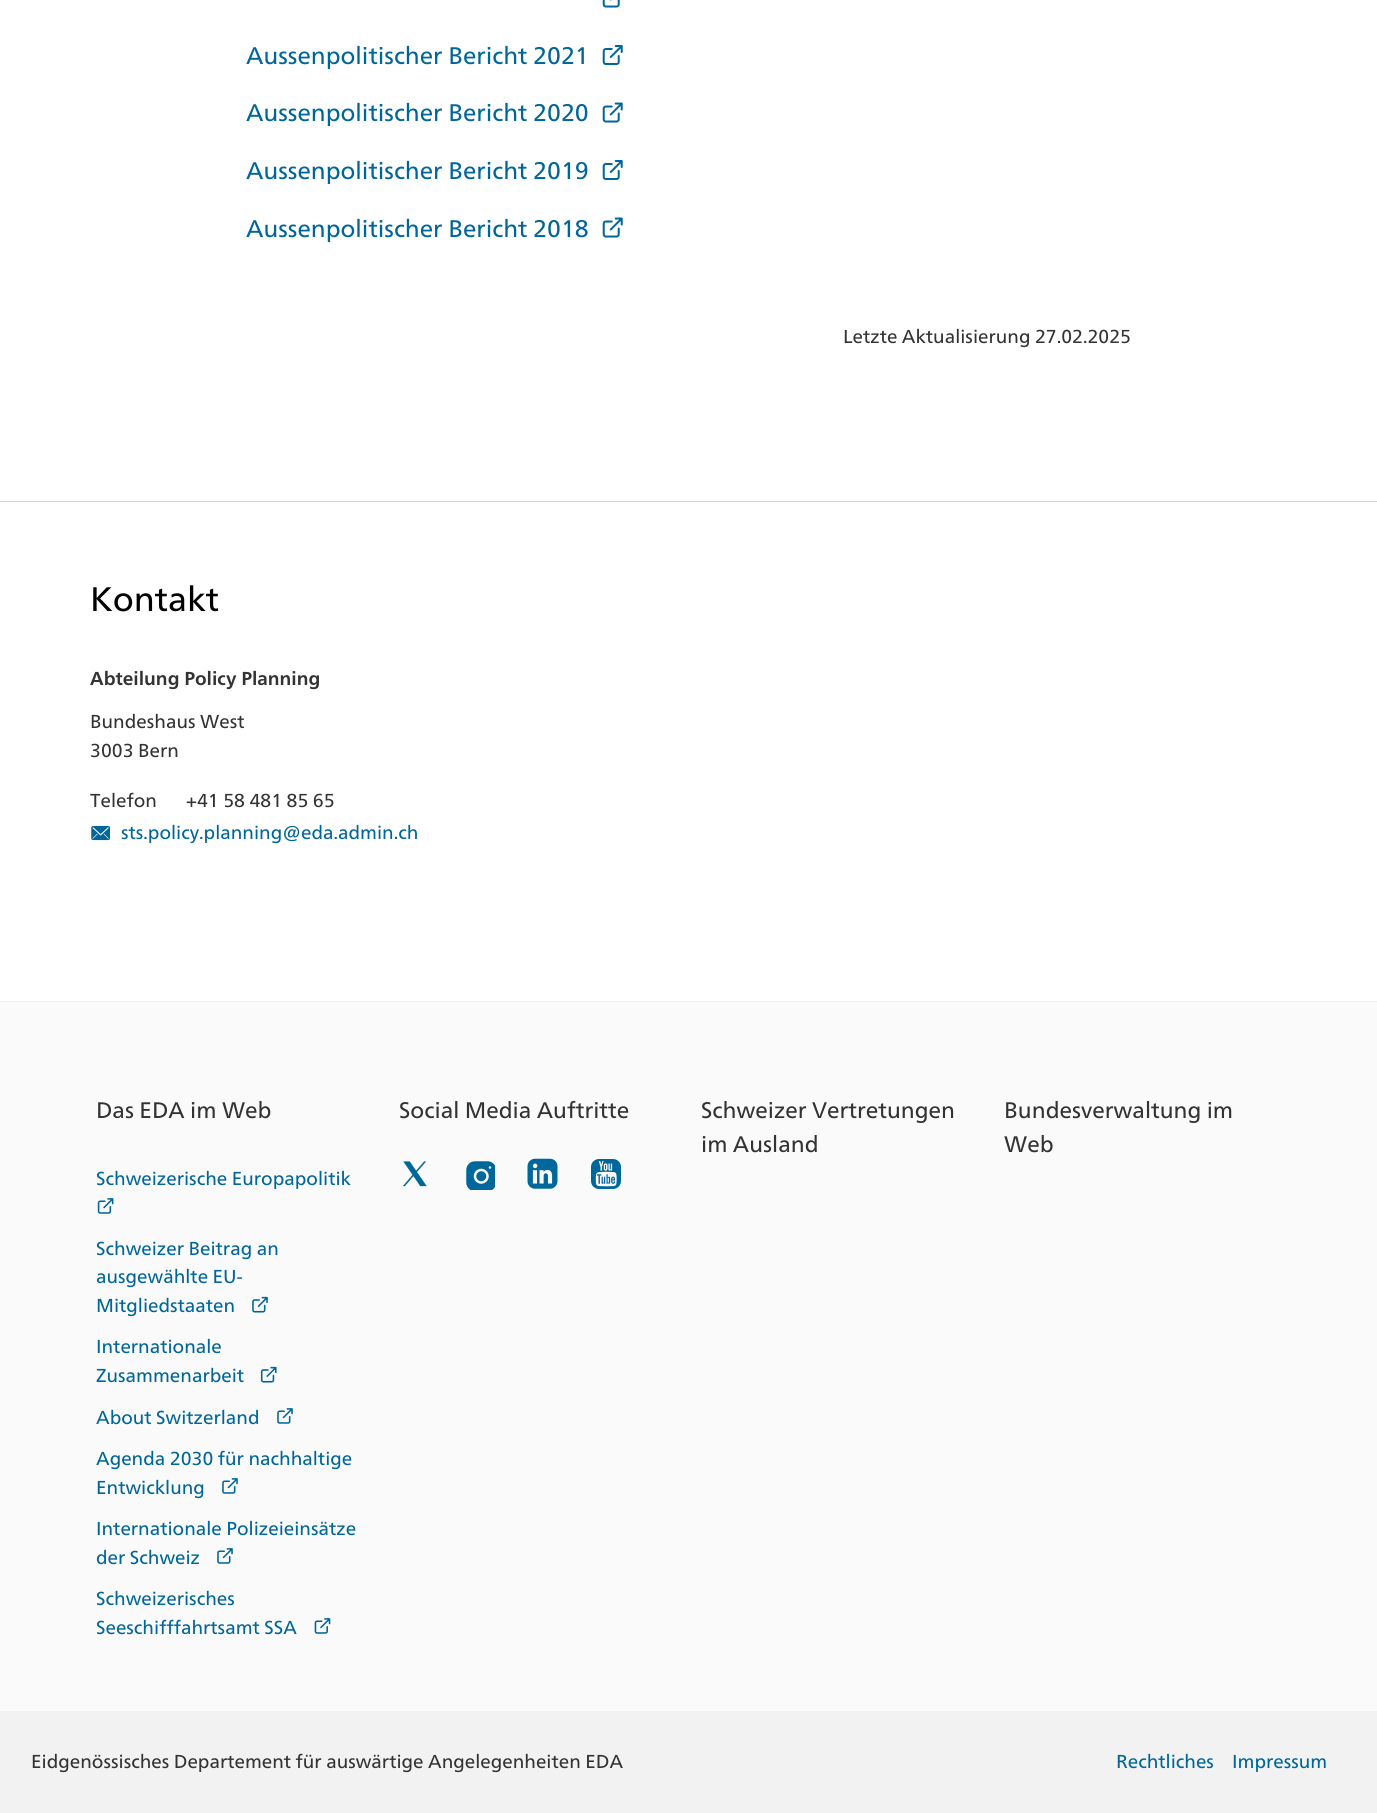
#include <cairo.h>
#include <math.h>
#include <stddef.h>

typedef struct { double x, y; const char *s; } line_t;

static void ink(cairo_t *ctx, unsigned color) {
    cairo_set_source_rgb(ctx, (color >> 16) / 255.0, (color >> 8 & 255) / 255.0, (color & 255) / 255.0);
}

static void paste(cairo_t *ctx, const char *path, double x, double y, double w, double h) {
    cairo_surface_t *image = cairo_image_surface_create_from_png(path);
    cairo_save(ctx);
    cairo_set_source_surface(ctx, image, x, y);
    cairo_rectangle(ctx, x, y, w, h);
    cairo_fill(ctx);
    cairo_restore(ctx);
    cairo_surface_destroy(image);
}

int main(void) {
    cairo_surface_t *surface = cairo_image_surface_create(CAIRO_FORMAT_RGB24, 1377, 1813);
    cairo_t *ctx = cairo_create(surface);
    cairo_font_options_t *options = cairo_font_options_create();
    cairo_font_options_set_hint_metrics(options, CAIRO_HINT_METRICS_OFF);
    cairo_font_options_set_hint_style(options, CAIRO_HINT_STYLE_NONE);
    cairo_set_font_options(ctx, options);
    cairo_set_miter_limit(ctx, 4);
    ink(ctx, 0xFFFFFF);
    cairo_paint(ctx);
    paste(ctx, "media/1.png", 602, 0, 18, 8);
    cairo_select_font_face(ctx, "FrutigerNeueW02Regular", CAIRO_FONT_SLANT_NORMAL, CAIRO_FONT_WEIGHT_NORMAL);
    cairo_set_font_size(ctx, 24);
    ink(ctx, 0x006699);
    cairo_move_to(ctx, 246, 64);
    cairo_show_text(ctx, "Aussenpolitischer Bericht 2021");
    paste(ctx, "media/2.png", 602, 45, 21, 20);
    cairo_move_to(ctx, 246, 121);
    cairo_show_text(ctx, "Aussenpolitischer Bericht 2020");
    paste(ctx, "media/3.png", 602, 102, 21, 21);
    cairo_move_to(ctx, 246, 179);
    cairo_show_text(ctx, "Aussenpolitischer Bericht 2019");
    paste(ctx, "media/2.png", 602, 160, 21, 20);
    cairo_move_to(ctx, 246, 237);
    cairo_show_text(ctx, "Aussenpolitischer Bericht 2018");
    paste(ctx, "media/3.png", 602, 217, 21, 21);
    cairo_set_font_size(ctx, 18.75);
    ink(ctx, 0x333333);
    cairo_move_to(ctx, 843, 343);
    cairo_show_text(ctx, "Letzte Aktualisierung 27.02.2025");
    ink(ctx, 0xD5D5D5);
    cairo_rectangle(ctx, 0, 501, 1377, 1);
    cairo_fill(ctx);
    cairo_set_font_size(ctx, 34);
    ink(ctx, 0x000000);
    cairo_move_to(ctx, 90, 611);
    cairo_show_text(ctx, "Kontakt");
    cairo_select_font_face(ctx, "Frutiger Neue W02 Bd", CAIRO_FONT_SLANT_NORMAL, CAIRO_FONT_WEIGHT_BOLD);
    cairo_set_font_size(ctx, 18.75);
    ink(ctx, 0x333333);
    cairo_move_to(ctx, 90, 685);
    cairo_show_text(ctx, "Abteilung Policy Planning");
    cairo_select_font_face(ctx, "FrutigerNeueW02Regular", CAIRO_FONT_SLANT_NORMAL, CAIRO_FONT_WEIGHT_NORMAL);
    {
        static const line_t items[] = {
            {90, 728, "Bundeshaus West"},
            {90, 757, "3003 Bern"},
            {90, 807, "Telefon"},
            {186, 807, "+41 58 481 85 65"},
        };
        for (size_t i = 0; i < sizeof items / sizeof *items; i++) {
            cairo_move_to(ctx, items[i].x, items[i].y);
            cairo_show_text(ctx, items[i].s);
        }
    }
    paste(ctx, "media/4.png", 91, 826, 19, 15);
    ink(ctx, 0x006699);
    cairo_move_to(ctx, 121, 839);
    cairo_show_text(ctx, "sts.policy.planning@eda.admin.ch");
    ink(ctx, 0xFAFAFA);
    cairo_rectangle(ctx, 0, 1002, 1377, 709);
    cairo_fill(ctx);
    ink(ctx, 0xF2F2F2);
    cairo_rectangle(ctx, 0, 1001, 1377, 1);
    cairo_fill(ctx);
    cairo_set_font_size(ctx, 22.5);
    ink(ctx, 0x333333);
    cairo_move_to(ctx, 96, 1118);
    cairo_show_text(ctx, "Das EDA im Web");
    cairo_set_font_size(ctx, 18.75);
    ink(ctx, 0x006699);
    cairo_move_to(ctx, 96, 1185);
    cairo_show_text(ctx, "Schweizerische Europapolitik");
    paste(ctx, "media/5.png", 97, 1198, 17, 16);
    {
        static const line_t items[] = {
            {96, 1255, "Schweizer Beitrag an"},
            {96, 1283, "ausgewählte EU-"},
            {96, 1312, "Mitgliedstaaten"},
        };
        for (size_t i = 0; i < sizeof items / sizeof *items; i++) {
            cairo_move_to(ctx, items[i].x, items[i].y);
            cairo_show_text(ctx, items[i].s);
        }
    }
    paste(ctx, "media/6.png", 252, 1296, 16, 17);
    cairo_move_to(ctx, 96, 1353);
    cairo_show_text(ctx, "Internationale");
    cairo_move_to(ctx, 96, 1382);
    cairo_show_text(ctx, "Zusammenarbeit");
    paste(ctx, "media/7.png", 260, 1366, 17, 17);
    cairo_move_to(ctx, 96, 1424);
    cairo_show_text(ctx, "About Switzerland");
    paste(ctx, "media/8.png", 277, 1408, 16, 16);
    cairo_move_to(ctx, 96, 1465);
    cairo_show_text(ctx, "Agenda 2030 für nachhaltige");
    cairo_move_to(ctx, 96, 1494);
    cairo_show_text(ctx, "Entwicklung");
    paste(ctx, "media/8.png", 222, 1478, 16, 16);
    cairo_move_to(ctx, 96, 1535);
    cairo_show_text(ctx, "Internationale Polizeieinsätze");
    cairo_move_to(ctx, 96, 1564);
    cairo_show_text(ctx, "der Schweiz");
    paste(ctx, "media/8.png", 217, 1548, 16, 16);
    cairo_move_to(ctx, 96, 1605);
    cairo_show_text(ctx, "Schweizerisches");
    cairo_move_to(ctx, 96, 1634);
    cairo_show_text(ctx, "Seeschifffahrtsamt SSA");
    paste(ctx, "media/9.png", 314, 1618, 17, 16);
    cairo_set_font_size(ctx, 22.5);
    ink(ctx, 0x333333);
    cairo_move_to(ctx, 399, 1118);
    cairo_show_text(ctx, "Social Media Auftritte");
    paste(ctx, "media/10.png", 402, 1161, 25, 26);
    paste(ctx, "media/11.png", 466, 1161, 29, 29);
    paste(ctx, "media/12.png", 527, 1158, 31, 31);
    paste(ctx, "media/13.png", 591, 1159, 30, 30);
    {
        static const line_t items[] = {
            {701, 1118, "Schweizer Vertretungen"},
            {701, 1152, "im Ausland"},
            {1004, 1118, "Bundesverwaltung im"},
            {1004, 1152, "Web"},
        };
        for (size_t i = 0; i < sizeof items / sizeof *items; i++) {
            cairo_move_to(ctx, items[i].x, items[i].y);
            cairo_show_text(ctx, items[i].s);
        }
    }
    ink(ctx, 0xF2F2F2);
    cairo_rectangle(ctx, 0, 1711, 1377, 102);
    cairo_fill(ctx);
    cairo_set_font_size(ctx, 18.75);
    ink(ctx, 0x333333);
    cairo_move_to(ctx, 31, 1768);
    cairo_show_text(ctx, "Eidgenössisches Departement für auswärtige Angelegenheiten EDA");
    ink(ctx, 0x006699);
    cairo_move_to(ctx, 1116, 1768);
    cairo_show_text(ctx, "Rechtliches");
    cairo_move_to(ctx, 1232, 1768);
    cairo_show_text(ctx, "Impressum");
    cairo_surface_write_to_png(surface, "image.png");
    cairo_font_options_destroy(options);
    cairo_destroy(ctx);
    cairo_surface_destroy(surface);
    return 0;
}
